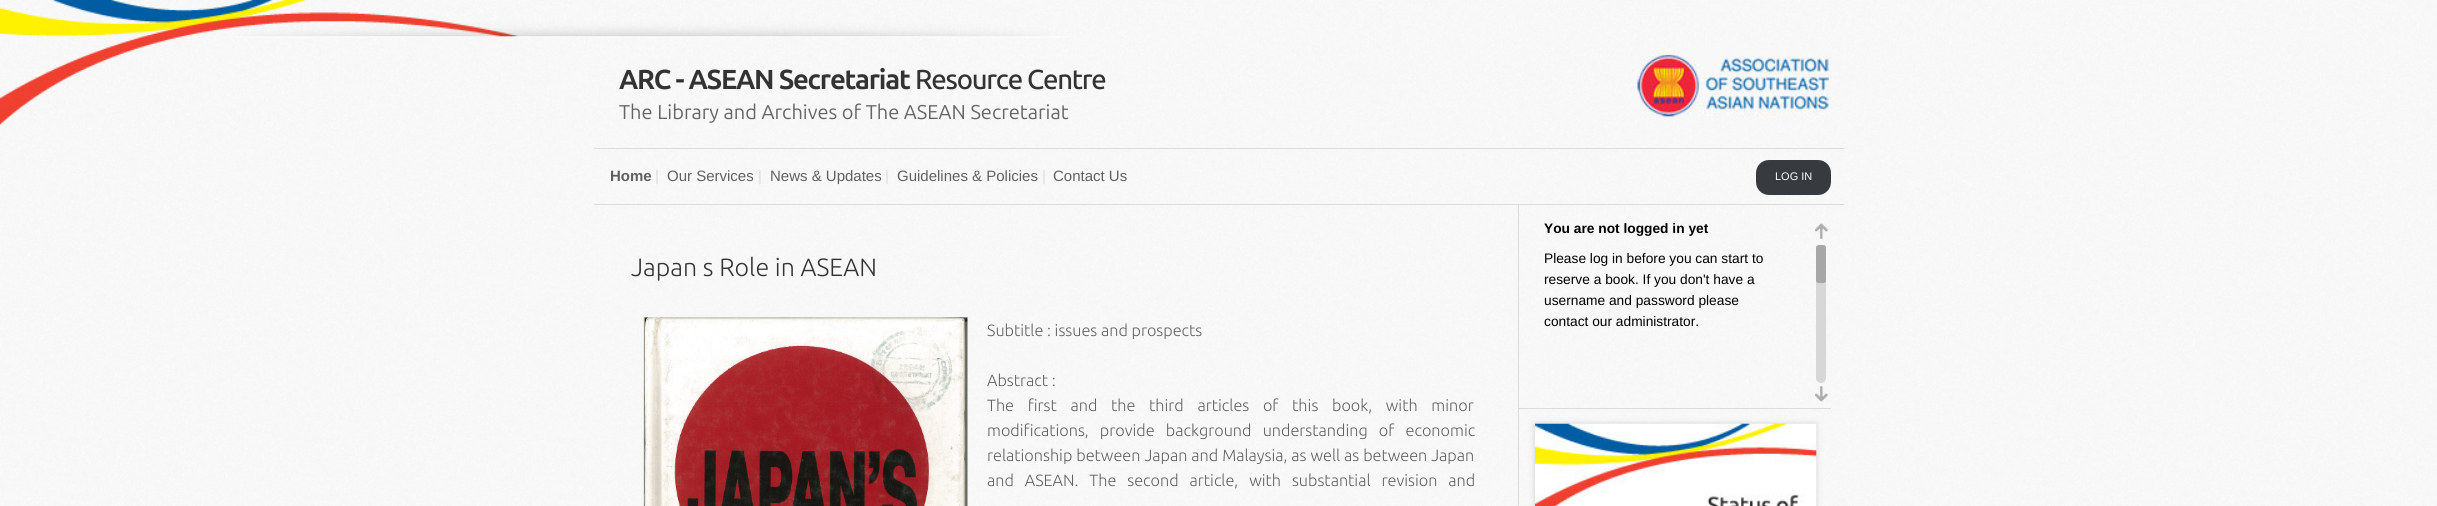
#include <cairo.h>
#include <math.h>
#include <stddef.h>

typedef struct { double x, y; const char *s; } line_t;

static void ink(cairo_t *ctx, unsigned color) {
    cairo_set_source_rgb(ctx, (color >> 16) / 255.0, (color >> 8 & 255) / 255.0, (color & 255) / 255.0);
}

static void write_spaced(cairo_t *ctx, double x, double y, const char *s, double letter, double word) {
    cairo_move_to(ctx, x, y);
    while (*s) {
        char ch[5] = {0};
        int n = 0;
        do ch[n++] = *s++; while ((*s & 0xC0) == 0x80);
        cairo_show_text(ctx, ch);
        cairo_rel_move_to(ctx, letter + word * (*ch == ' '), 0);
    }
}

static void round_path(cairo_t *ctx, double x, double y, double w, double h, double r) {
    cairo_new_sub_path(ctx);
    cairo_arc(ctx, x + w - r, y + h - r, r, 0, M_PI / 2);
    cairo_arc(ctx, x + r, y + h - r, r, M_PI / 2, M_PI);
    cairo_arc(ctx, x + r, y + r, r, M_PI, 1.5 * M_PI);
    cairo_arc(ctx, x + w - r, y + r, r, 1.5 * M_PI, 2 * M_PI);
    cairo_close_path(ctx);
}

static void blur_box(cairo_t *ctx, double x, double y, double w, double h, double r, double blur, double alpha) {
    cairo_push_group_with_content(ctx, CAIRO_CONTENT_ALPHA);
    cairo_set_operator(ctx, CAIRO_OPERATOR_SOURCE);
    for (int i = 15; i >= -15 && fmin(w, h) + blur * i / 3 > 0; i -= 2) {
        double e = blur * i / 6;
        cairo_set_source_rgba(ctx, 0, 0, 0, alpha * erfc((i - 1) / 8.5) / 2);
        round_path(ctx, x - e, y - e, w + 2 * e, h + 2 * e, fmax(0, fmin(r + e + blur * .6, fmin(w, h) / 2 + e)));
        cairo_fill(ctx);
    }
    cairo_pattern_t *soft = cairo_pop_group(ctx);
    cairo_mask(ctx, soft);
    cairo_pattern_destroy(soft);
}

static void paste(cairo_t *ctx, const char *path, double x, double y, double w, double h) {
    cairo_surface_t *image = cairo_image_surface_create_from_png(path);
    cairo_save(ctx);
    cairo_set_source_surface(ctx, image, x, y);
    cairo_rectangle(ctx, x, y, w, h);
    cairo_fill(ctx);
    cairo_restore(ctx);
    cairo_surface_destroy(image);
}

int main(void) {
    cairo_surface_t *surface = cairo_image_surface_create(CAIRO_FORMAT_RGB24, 2437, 506);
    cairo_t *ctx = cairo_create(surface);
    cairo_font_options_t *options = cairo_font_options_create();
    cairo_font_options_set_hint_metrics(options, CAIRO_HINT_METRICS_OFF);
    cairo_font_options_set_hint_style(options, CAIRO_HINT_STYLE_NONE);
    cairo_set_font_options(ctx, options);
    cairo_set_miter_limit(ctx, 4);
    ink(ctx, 0xFFFFFF);
    cairo_paint(ctx);
    paste(ctx, "media/1.png", 0, 0, 2437, 506);
    paste(ctx, "media/2.png", 0, 0, 1082, 130);
    paste(ctx, "media/3.png", 1630, 47, 200, 71);
    ink(ctx, 0xDCDCDD);
    cairo_rectangle(ctx, 594, 148, 1250, 1);
    cairo_fill(ctx);
    cairo_select_font_face(ctx, "Ubuntu", CAIRO_FONT_SLANT_NORMAL, CAIRO_FONT_WEIGHT_BOLD);
    cairo_set_font_size(ctx, 27.5);
    ink(ctx, 0x333333);
    write_spaced(ctx, 619, 89, "ARC - ASEAN Secretariat", -1.25, 0);
    cairo_select_font_face(ctx, "Ubuntu Medium", CAIRO_FONT_SLANT_NORMAL, CAIRO_FONT_WEIGHT_NORMAL);
    write_spaced(ctx, 915, 89, "Resource Centre", -1.25, 0);
    cairo_select_font_face(ctx, "Ubuntu", CAIRO_FONT_SLANT_NORMAL, CAIRO_FONT_WEIGHT_NORMAL);
    cairo_set_font_size(ctx, 20);
    ink(ctx, 0x666666);
    cairo_move_to(ctx, 619, 119);
    cairo_show_text(ctx, "The Library and Archives of The ASEAN Secretariat");
    ink(ctx, 0xDCDCDD);
    cairo_rectangle(ctx, 594, 204, 1250, 1);
    cairo_fill(ctx);
    cairo_select_font_face(ctx, "Liberation Sans", CAIRO_FONT_SLANT_NORMAL, CAIRO_FONT_WEIGHT_BOLD);
    cairo_set_font_size(ctx, 15);
    ink(ctx, 0x606060);
    cairo_move_to(ctx, 610, 181);
    cairo_show_text(ctx, "Home");
    cairo_select_font_face(ctx, "Liberation Sans", CAIRO_FONT_SLANT_NORMAL, CAIRO_FONT_WEIGHT_NORMAL);
    ink(ctx, 0xDCDCDD);
    cairo_move_to(ctx, 655, 181);
    cairo_show_text(ctx, "|");
    ink(ctx, 0x606060);
    cairo_move_to(ctx, 667, 181);
    cairo_show_text(ctx, "Our Services");
    ink(ctx, 0xDCDCDD);
    cairo_move_to(ctx, 758, 181);
    cairo_show_text(ctx, "|");
    ink(ctx, 0x606060);
    cairo_move_to(ctx, 770, 181);
    cairo_show_text(ctx, "News & Updates");
    ink(ctx, 0xDCDCDD);
    cairo_move_to(ctx, 885, 181);
    cairo_show_text(ctx, "|");
    ink(ctx, 0x606060);
    cairo_move_to(ctx, 897, 181);
    cairo_show_text(ctx, "Guidelines & Policies");
    ink(ctx, 0xDCDCDD);
    cairo_move_to(ctx, 1042, 181);
    cairo_show_text(ctx, "|");
    ink(ctx, 0x606060);
    cairo_move_to(ctx, 1053, 181);
    cairo_show_text(ctx, "Contact Us");
    ink(ctx, 0x373B40);
    round_path(ctx, 1756, 160, 75, 35, 13);
    cairo_fill(ctx);
    cairo_set_font_size(ctx, 11);
    ink(ctx, 0xFFFFFF);
    cairo_move_to(ctx, 1775, 180);
    cairo_show_text(ctx, "LOG IN");
    ink(ctx, 0xDCDCDD);
    cairo_rectangle(ctx, 1518, 205, 1, 301);
    cairo_fill(ctx);
    cairo_select_font_face(ctx, "Ubuntu Light", CAIRO_FONT_SLANT_NORMAL, CAIRO_FONT_WEIGHT_NORMAL);
    cairo_set_font_size(ctx, 25);
    ink(ctx, 0x333333);
    cairo_move_to(ctx, 631, 276);
    cairo_show_text(ctx, "Japan s Role in ASEAN");
    paste(ctx, "media/4.png", 643, 317, 325, 189);
    cairo_set_font_size(ctx, 16.25);
    ink(ctx, 0x606060);
    cairo_move_to(ctx, 987, 336);
    cairo_show_text(ctx, "Subtitle : issues and prospects");
    cairo_move_to(ctx, 987, 386);
    cairo_show_text(ctx, "Abstract :");
    write_spaced(ctx, 987, 411, "The first and the third articles of this book, with minor", 0, 10);
    write_spaced(ctx, 987, 436, "modifications, provide background understanding of economic", 0, 7.5);
    write_spaced(ctx, 987, 461, "relationship between Japan and Malaysia, as well as between Japan", 0, 0.25);
    write_spaced(ctx, 987, 486, "and ASEAN. The second article, with substantial revision and", 0, 7.25);
    ink(ctx, 0xDCDCDD);
    cairo_rectangle(ctx, 1519, 408, 312, 1);
    cairo_fill(ctx);
    cairo_select_font_face(ctx, "Liberation Sans", CAIRO_FONT_SLANT_NORMAL, CAIRO_FONT_WEIGHT_BOLD);
    cairo_set_font_size(ctx, 13.75);
    ink(ctx, 0x000000);
    cairo_move_to(ctx, 1544, 233);
    cairo_show_text(ctx, "You are not logged in yet");
    cairo_select_font_face(ctx, "Liberation Sans", CAIRO_FONT_SLANT_NORMAL, CAIRO_FONT_WEIGHT_NORMAL);
    {
        static const line_t items[] = {
            {1544, 263, "Please log in before you can start to"},
            {1544, 284, "reserve a book. If you don't have a"},
            {1544, 305, "username and password please"},
            {1544, 326, "contact our administrator."},
        };
        for (size_t i = 0; i < sizeof items / sizeof *items; i++) {
            cairo_move_to(ctx, items[i].x, items[i].y);
            cairo_show_text(ctx, items[i].s);
        }
    }
    paste(ctx, "media/5.png", 1815, 223, 13, 16);
    cairo_set_source_rgba(ctx, 0.8, 0.8, 0.8, 0.75);
    round_path(ctx, 1816, 245, 10, 138, 5);
    cairo_fill(ctx);
    cairo_set_source_rgba(ctx, 0.592, 0.592, 0.592, 0.75);
    round_path(ctx, 1816, 245, 10, 38, 2.5);
    cairo_fill(ctx);
    paste(ctx, "media/6.png", 1815, 386, 13, 16);
    ink(ctx, 0xCCCCCC);
    blur_box(ctx, 1535, 424, 281, 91, 0, 3, 1);
    paste(ctx, "media/7.png", 1535, 423, 282, 83);
    cairo_surface_write_to_png(surface, "image.png");
    cairo_font_options_destroy(options);
    cairo_destroy(ctx);
    cairo_surface_destroy(surface);
    return 0;
}
